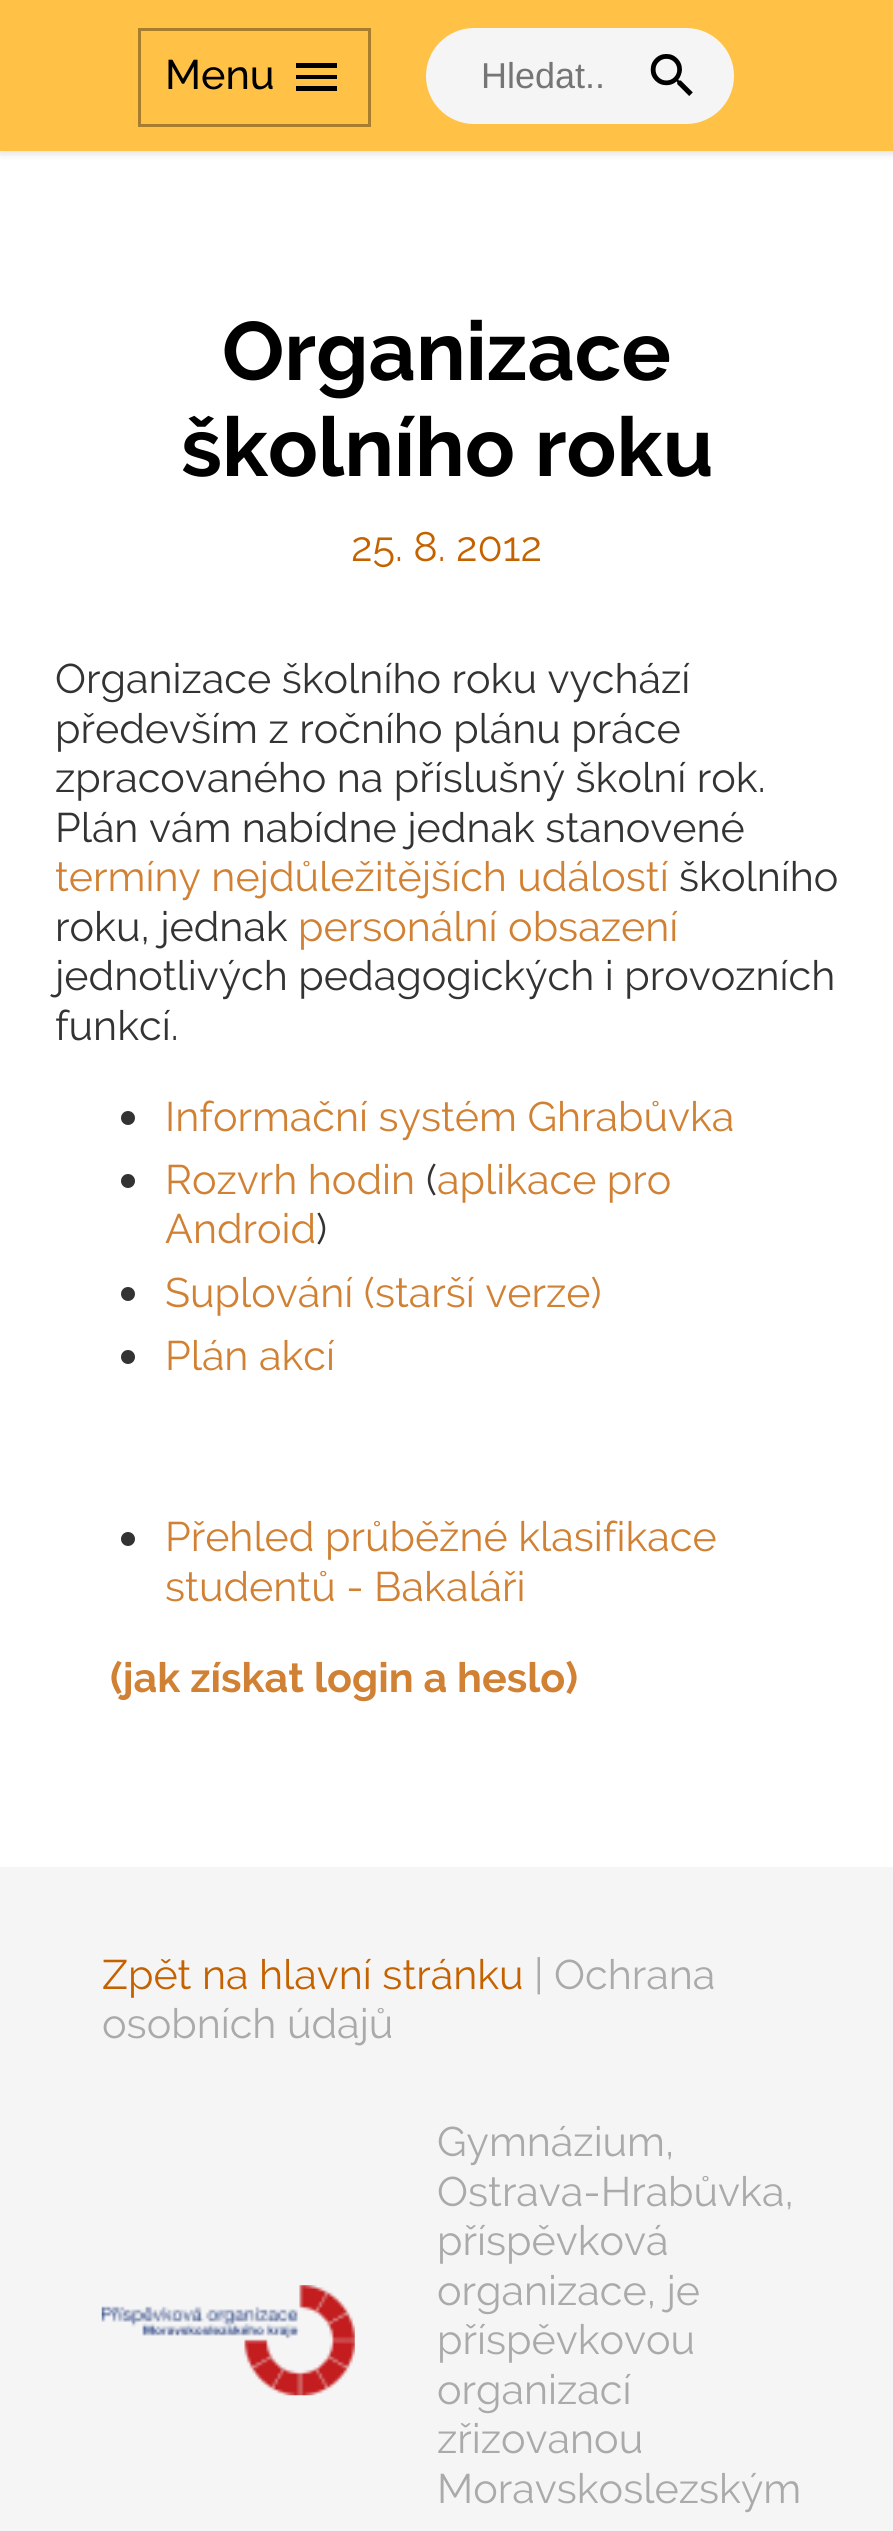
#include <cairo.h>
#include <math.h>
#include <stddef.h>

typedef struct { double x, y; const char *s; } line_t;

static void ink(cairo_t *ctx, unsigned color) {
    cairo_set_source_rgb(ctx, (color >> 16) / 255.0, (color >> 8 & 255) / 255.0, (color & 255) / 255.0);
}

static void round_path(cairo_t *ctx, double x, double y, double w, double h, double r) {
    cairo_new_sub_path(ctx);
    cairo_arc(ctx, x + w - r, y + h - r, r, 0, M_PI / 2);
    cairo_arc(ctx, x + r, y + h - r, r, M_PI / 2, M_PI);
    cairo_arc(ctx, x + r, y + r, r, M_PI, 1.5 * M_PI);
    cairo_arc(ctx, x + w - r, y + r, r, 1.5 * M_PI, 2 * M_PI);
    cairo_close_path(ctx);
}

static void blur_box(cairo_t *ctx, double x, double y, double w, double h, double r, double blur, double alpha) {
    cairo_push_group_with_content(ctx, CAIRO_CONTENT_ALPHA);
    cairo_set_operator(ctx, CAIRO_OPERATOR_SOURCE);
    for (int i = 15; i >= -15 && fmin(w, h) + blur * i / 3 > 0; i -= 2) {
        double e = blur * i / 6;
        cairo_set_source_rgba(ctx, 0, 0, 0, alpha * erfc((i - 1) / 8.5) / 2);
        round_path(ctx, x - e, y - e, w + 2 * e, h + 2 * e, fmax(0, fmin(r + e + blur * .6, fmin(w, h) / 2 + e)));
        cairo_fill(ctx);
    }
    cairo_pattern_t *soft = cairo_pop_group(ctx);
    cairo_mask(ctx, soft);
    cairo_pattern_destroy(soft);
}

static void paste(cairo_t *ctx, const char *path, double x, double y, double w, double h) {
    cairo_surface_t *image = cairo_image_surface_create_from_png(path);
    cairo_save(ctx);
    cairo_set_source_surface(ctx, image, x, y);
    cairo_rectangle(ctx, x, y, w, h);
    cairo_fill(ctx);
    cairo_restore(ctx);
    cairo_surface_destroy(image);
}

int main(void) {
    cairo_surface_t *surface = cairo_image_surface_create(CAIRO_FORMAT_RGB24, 893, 2531);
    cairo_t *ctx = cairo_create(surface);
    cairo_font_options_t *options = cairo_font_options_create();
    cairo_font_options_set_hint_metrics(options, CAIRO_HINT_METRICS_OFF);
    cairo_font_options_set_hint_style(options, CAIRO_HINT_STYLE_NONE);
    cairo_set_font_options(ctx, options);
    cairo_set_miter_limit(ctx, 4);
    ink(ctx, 0xFFFFFF);
    cairo_paint(ctx);
    ink(ctx, 0x000000);
    blur_box(ctx, 0, 3, 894, 151, 0, 4, 0.12);
    ink(ctx, 0xFFC246);
    cairo_rectangle(ctx, 0, 0, 893, 151);
    cairo_fill(ctx);
    cairo_rectangle(ctx, 139.5, 29.5, 230, 96);
    ink(ctx, 0xA67E2E);
    cairo_set_line_width(ctx, 3);
    cairo_stroke(ctx);
    cairo_select_font_face(ctx, "Raleway Medium", CAIRO_FONT_SLANT_NORMAL, CAIRO_FONT_WEIGHT_NORMAL);
    cairo_set_font_size(ctx, 41.25);
    ink(ctx, 0x000000);
    cairo_move_to(ctx, 165, 89);
    cairo_show_text(ctx, "Menu");
    cairo_new_path(ctx);
    cairo_move_to(ctx, 296, 63);
    cairo_line_to(ctx, 337, 63);
    cairo_line_to(ctx, 337, 68);
    cairo_line_to(ctx, 296, 68);
    cairo_close_path(ctx);
    cairo_move_to(ctx, 296, 79);
    cairo_line_to(ctx, 296, 75);
    cairo_line_to(ctx, 337, 75);
    cairo_line_to(ctx, 337, 79);
    cairo_close_path(ctx);
    cairo_move_to(ctx, 296, 91);
    cairo_line_to(ctx, 296, 86);
    cairo_line_to(ctx, 337, 86);
    cairo_line_to(ctx, 337, 91);
    cairo_close_path(ctx);
    cairo_fill(ctx);
    ink(ctx, 0xF5F5F6);
    cairo_new_path(ctx);
    cairo_move_to(ctx, 474, 28);
    cairo_line_to(ctx, 646, 28);
    cairo_line_to(ctx, 646, 124);
    cairo_line_to(ctx, 474, 124);
    cairo_curve_to(ctx, 447.5, 124, 426, 102.5, 426, 76);
    cairo_curve_to(ctx, 426, 49.5, 447.5, 28, 474, 28);
    cairo_close_path(ctx);
    cairo_fill(ctx);
    cairo_select_font_face(ctx, "Liberation Sans", CAIRO_FONT_SLANT_NORMAL, CAIRO_FONT_WEIGHT_NORMAL);
    cairo_set_font_size(ctx, 36);
    ink(ctx, 0x757575);
    cairo_move_to(ctx, 481, 88);
    cairo_show_text(ctx, "Hledat..");
    ink(ctx, 0xF5F5F6);
    cairo_new_path(ctx);
    cairo_move_to(ctx, 624, 28);
    cairo_line_to(ctx, 686, 28);
    cairo_curve_to(ctx, 712.5, 28, 734, 49.5, 734, 76);
    cairo_curve_to(ctx, 734, 102.5, 712.5, 124, 686, 124);
    cairo_line_to(ctx, 624, 124);
    cairo_close_path(ctx);
    cairo_fill(ctx);
    paste(ctx, "media/1.png", 650, 54, 43, 42);
    cairo_select_font_face(ctx, "Raleway", CAIRO_FONT_SLANT_NORMAL, CAIRO_FONT_WEIGHT_BOLD);
    cairo_set_font_size(ctx, 82.5);
    ink(ctx, 0x000000);
    cairo_move_to(ctx, 222, 380);
    cairo_show_text(ctx, "Organizace");
    cairo_move_to(ctx, 181, 476);
    cairo_show_text(ctx, "školního roku");
    cairo_select_font_face(ctx, "Raleway", CAIRO_FONT_SLANT_NORMAL, CAIRO_FONT_WEIGHT_NORMAL);
    cairo_set_font_size(ctx, 41.25);
    ink(ctx, 0xC56200);
    cairo_move_to(ctx, 351, 561);
    cairo_show_text(ctx, "25. 8. 2012");
    ink(ctx, 0x333333);
    {
        static const line_t items[] = {
            {55, 693, "Organizace školního roku vychází"},
            {55, 743, "především z ročního plánu práce"},
            {55, 792, "zpracovaného na příslušný školní rok."},
            {55, 842, "Plán vám nabídne jednak stanovené"},
        };
        for (size_t i = 0; i < sizeof items / sizeof *items; i++) {
            cairo_move_to(ctx, items[i].x, items[i].y);
            cairo_show_text(ctx, items[i].s);
        }
    }
    ink(ctx, 0xD18133);
    cairo_move_to(ctx, 55, 891);
    cairo_show_text(ctx, "termíny nejdůležitějších událostí");
    ink(ctx, 0x333333);
    cairo_move_to(ctx, 679, 891);
    cairo_show_text(ctx, "školního");
    cairo_move_to(ctx, 55, 941);
    cairo_show_text(ctx, "roku, jednak");
    ink(ctx, 0xD18133);
    cairo_move_to(ctx, 298, 941);
    cairo_show_text(ctx, "personální obsazení");
    ink(ctx, 0x333333);
    cairo_move_to(ctx, 55, 990);
    cairo_show_text(ctx, "jednotlivých pedagogických i provozních");
    cairo_move_to(ctx, 55, 1040);
    cairo_show_text(ctx, "funkcí.");
    cairo_new_path(ctx);
    cairo_arc(ctx, 128, 1118, 7, 0, 2 * M_PI);
    cairo_fill(ctx);
    ink(ctx, 0xD18133);
    cairo_move_to(ctx, 165, 1131);
    cairo_show_text(ctx, "Informační systém Ghrabůvka");
    ink(ctx, 0x333333);
    cairo_new_path(ctx);
    cairo_arc(ctx, 128, 1181, 7, 0, 2 * M_PI);
    cairo_fill(ctx);
    ink(ctx, 0xD18133);
    cairo_move_to(ctx, 165, 1194);
    cairo_show_text(ctx, "Rozvrh hodin");
    ink(ctx, 0x333333);
    cairo_move_to(ctx, 426, 1194);
    cairo_show_text(ctx, "(");
    ink(ctx, 0xD18133);
    cairo_move_to(ctx, 437, 1194);
    cairo_show_text(ctx, "aplikace pro");
    cairo_move_to(ctx, 165, 1243);
    cairo_show_text(ctx, "Android");
    ink(ctx, 0x333333);
    cairo_move_to(ctx, 316, 1243);
    cairo_show_text(ctx, ")");
    cairo_new_path(ctx);
    cairo_arc(ctx, 128, 1294, 7, 0, 2 * M_PI);
    cairo_fill(ctx);
    ink(ctx, 0xD18133);
    cairo_move_to(ctx, 165, 1307);
    cairo_show_text(ctx, "Suplování (starší verze)");
    ink(ctx, 0x333333);
    cairo_new_path(ctx);
    cairo_arc(ctx, 128, 1357, 7, 0, 2 * M_PI);
    cairo_fill(ctx);
    ink(ctx, 0xD18133);
    cairo_move_to(ctx, 165, 1370);
    cairo_show_text(ctx, "Plán akcí");
    ink(ctx, 0x333333);
    cairo_new_path(ctx);
    cairo_arc(ctx, 128, 1539, 7, 0, 2 * M_PI);
    cairo_fill(ctx);
    ink(ctx, 0xD18133);
    cairo_move_to(ctx, 165, 1551);
    cairo_show_text(ctx, "Přehled průběžné klasifikace");
    cairo_move_to(ctx, 165, 1601);
    cairo_show_text(ctx, "studentů - Bakaláři");
    cairo_select_font_face(ctx, "Raleway", CAIRO_FONT_SLANT_NORMAL, CAIRO_FONT_WEIGHT_BOLD);
    cairo_move_to(ctx, 110, 1692);
    cairo_show_text(ctx, "(jak získat login a heslo)");
    ink(ctx, 0xF5F5F6);
    cairo_rectangle(ctx, 0, 1867, 893, 664);
    cairo_fill(ctx);
    cairo_select_font_face(ctx, "Raleway", CAIRO_FONT_SLANT_NORMAL, CAIRO_FONT_WEIGHT_NORMAL);
    ink(ctx, 0xC56200);
    cairo_move_to(ctx, 102, 1989);
    cairo_show_text(ctx, "Zpět na hlavní stránku");
    ink(ctx, 0xAAAAAA);
    {
        static const line_t items[] = {
            {534, 1989, "|"},
            {554, 1989, "Ochrana"},
            {102, 2038, "osobních údajů"},
        };
        for (size_t i = 0; i < sizeof items / sizeof *items; i++) {
            cairo_move_to(ctx, items[i].x, items[i].y);
            cairo_show_text(ctx, items[i].s);
        }
    }
    paste(ctx, "media/2.png", 101, 2285, 254, 111);
    {
        static const line_t items[] = {
            {437, 2156, "Gymnázium,"},
            {437, 2206, "Ostrava-Hrabůvka,"},
            {437, 2255, "příspěvková"},
            {437, 2305, "organizace, je"},
            {437, 2354, "příspěvkovou"},
            {437, 2404, "organizací"},
            {437, 2453, "zřizovanou"},
            {437, 2503, "Moravskoslezským"},
        };
        for (size_t i = 0; i < sizeof items / sizeof *items; i++) {
            cairo_move_to(ctx, items[i].x, items[i].y);
            cairo_show_text(ctx, items[i].s);
        }
    }
    cairo_surface_write_to_png(surface, "image.png");
    cairo_font_options_destroy(options);
    cairo_destroy(ctx);
    cairo_surface_destroy(surface);
    return 0;
}
